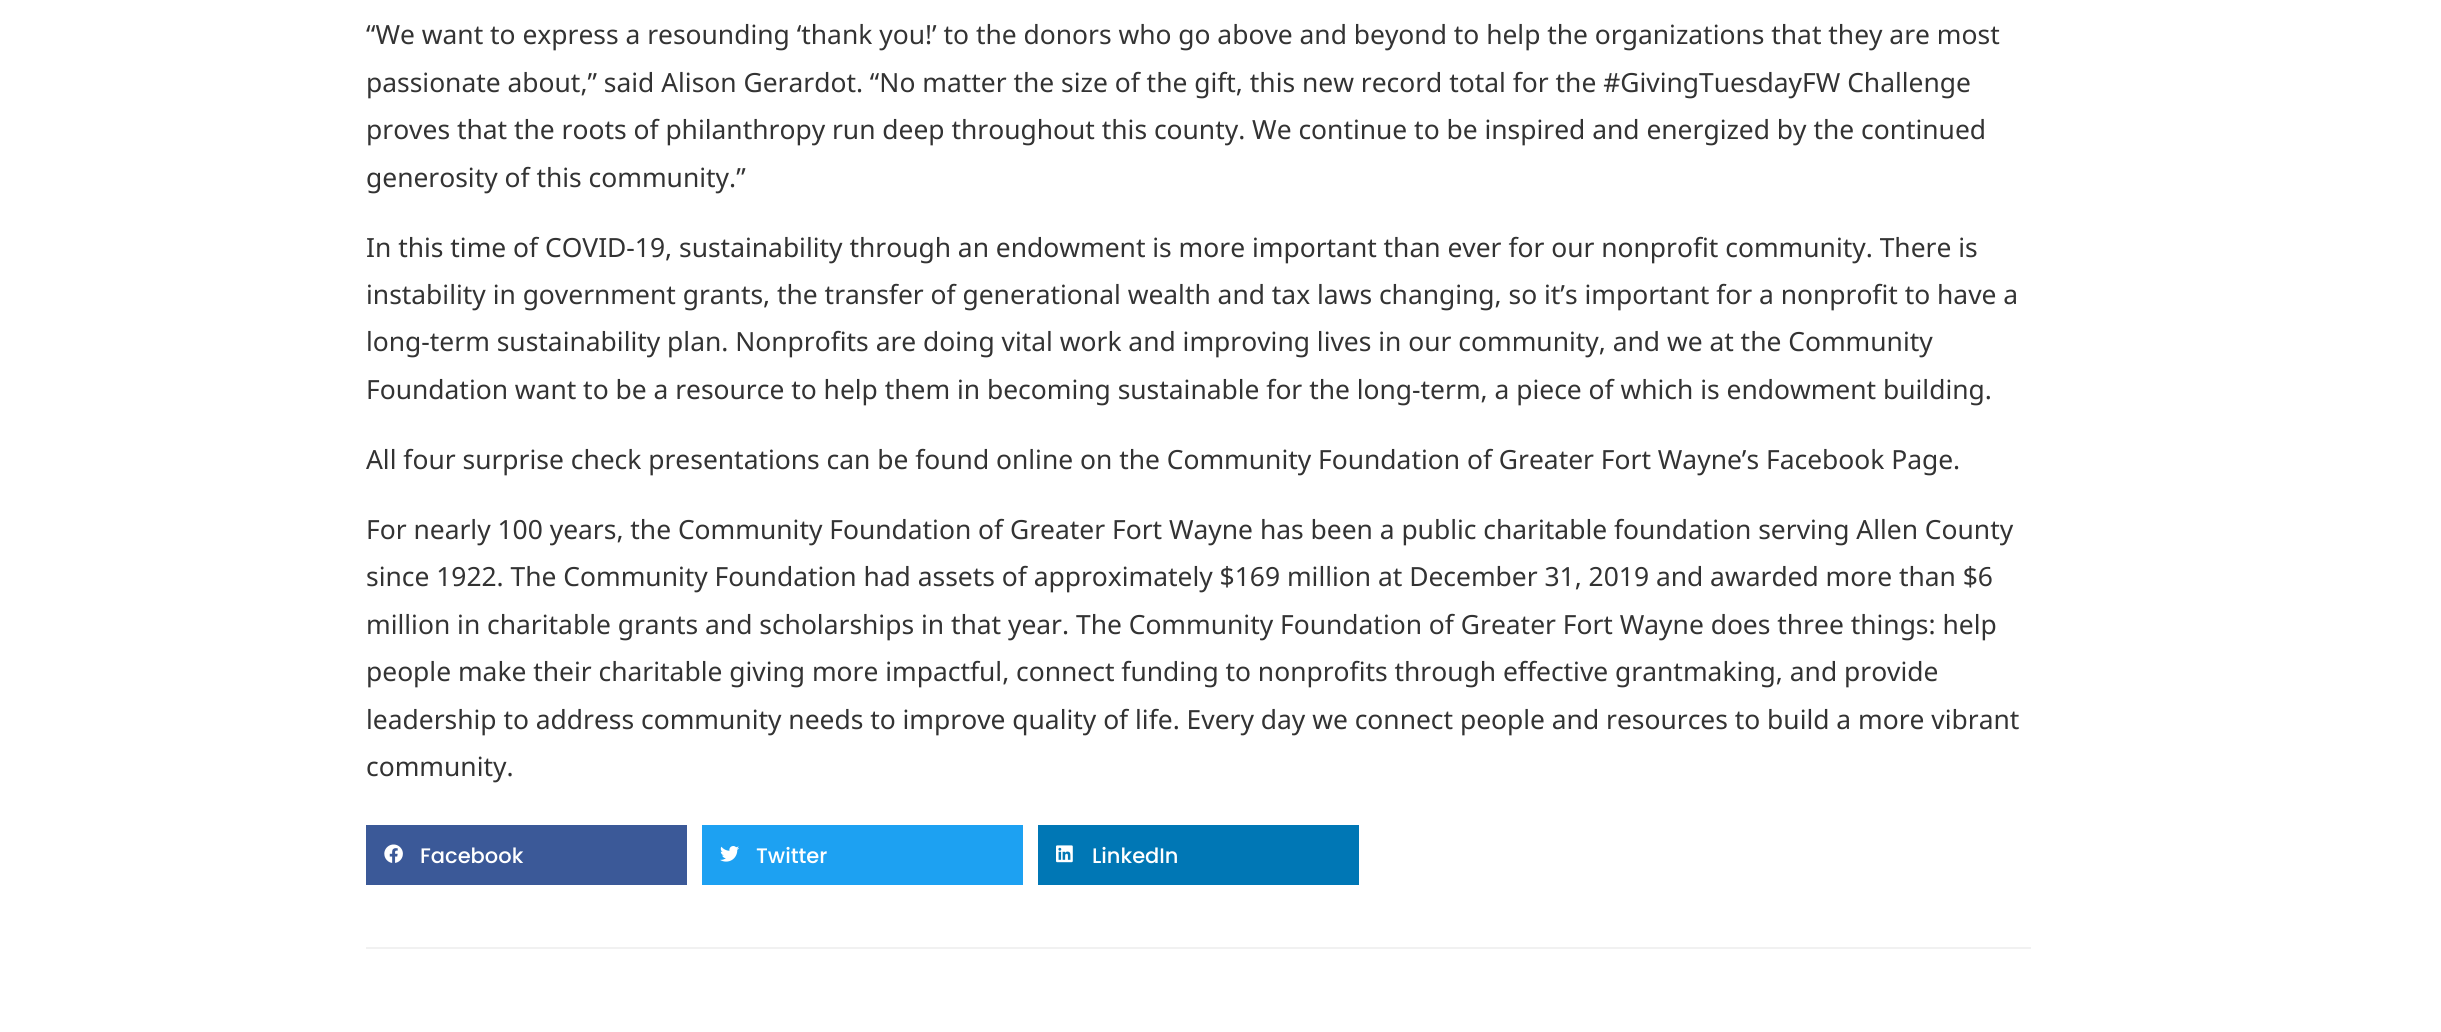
#include <cairo.h>
#include <math.h>
#include <stddef.h>

typedef struct { double x, y; const char *s; } line_t;

static void ink(cairo_t *ctx, unsigned color) {
    cairo_set_source_rgb(ctx, (color >> 16) / 255.0, (color >> 8 & 255) / 255.0, (color & 255) / 255.0);
}

static void paste(cairo_t *ctx, const char *path, double x, double y, double w, double h) {
    cairo_surface_t *image = cairo_image_surface_create_from_png(path);
    cairo_save(ctx);
    cairo_set_source_surface(ctx, image, x, y);
    cairo_rectangle(ctx, x, y, w, h);
    cairo_fill(ctx);
    cairo_restore(ctx);
    cairo_surface_destroy(image);
}

int main(void) {
    cairo_surface_t *surface = cairo_image_surface_create(CAIRO_FORMAT_RGB24, 2441, 1032);
    cairo_t *ctx = cairo_create(surface);
    cairo_font_options_t *options = cairo_font_options_create();
    cairo_font_options_set_hint_metrics(options, CAIRO_HINT_METRICS_OFF);
    cairo_font_options_set_hint_style(options, CAIRO_HINT_STYLE_NONE);
    cairo_set_font_options(ctx, options);
    cairo_set_miter_limit(ctx, 4);
    ink(ctx, 0xFFFFFF);
    cairo_paint(ctx);
    cairo_select_font_face(ctx, "Noto Sans", CAIRO_FONT_SLANT_NORMAL, CAIRO_FONT_WEIGHT_NORMAL);
    cairo_set_font_size(ctx, 26.4);
    ink(ctx, 0x333333);
    {
        static const line_t items[] = {
            {366, 44, "“We want to express a resounding ‘thank you!’ to the donors who go above and beyond to help the organizations that they are most"},
            {366, 92, "passionate about,” said Alison Gerardot. “No matter the size of the gift, this new record total for the #GivingTuesdayFW Challenge"},
            {366, 139, "proves that the roots of philanthropy run deep throughout this county. We continue to be inspired and energized by the continued"},
            {366, 187, "generosity of this community.”"},
            {366, 257, "In this time of COVID-19, sustainability through an endowment is more important than ever for our nonprofit community. There is"},
            {366, 304, "instability in government grants, the transfer of generational wealth and tax laws changing, so it’s important for a nonprofit to have a"},
            {366, 351, "long-term sustainability plan. Nonprofits are doing vital work and improving lives in our community, and we at the Community"},
            {366, 399, "Foundation want to be a resource to help them in becoming sustainable for the long-term, a piece of which is endowment building."},
            {366, 469, "All four surprise check presentations can be found online on the Community Foundation of Greater Fort Wayne’s Facebook Page."},
            {366, 539, "For nearly 100 years, the Community Foundation of Greater Fort Wayne has been a public charitable foundation serving Allen County"},
            {366, 586, "since 1922. The Community Foundation had assets of approximately $169 million at December 31, 2019 and awarded more than $6"},
            {366, 634, "million in charitable grants and scholarships in that year. The Community Foundation of Greater Fort Wayne does three things: help"},
            {366, 681, "people make their charitable giving more impactful, connect funding to nonprofits through effective grantmaking, and provide"},
            {366, 729, "leadership to address community needs to improve quality of life. Every day we connect people and resources to build a more vibrant"},
            {366, 776, "community."},
        };
        for (size_t i = 0; i < sizeof items / sizeof *items; i++) {
            cairo_move_to(ctx, items[i].x, items[i].y);
            cairo_show_text(ctx, items[i].s);
        }
    }
    ink(ctx, 0x3B5998);
    cairo_rectangle(ctx, 366, 825, 321, 60);
    cairo_fill(ctx);
    paste(ctx, "media/1.png", 384, 844, 19, 19);
    cairo_select_font_face(ctx, "Poppins Medium", CAIRO_FONT_SLANT_NORMAL, CAIRO_FONT_WEIGHT_NORMAL);
    cairo_set_font_size(ctx, 21);
    ink(ctx, 0xFFFFFF);
    cairo_move_to(ctx, 420, 863);
    cairo_show_text(ctx, "Facebook");
    ink(ctx, 0x1DA1F2);
    cairo_rectangle(ctx, 702, 825, 321, 60);
    cairo_fill(ctx);
    paste(ctx, "media/2.png", 720, 846, 19, 16);
    ink(ctx, 0xFFFFFF);
    cairo_move_to(ctx, 756, 863);
    cairo_show_text(ctx, "Twitter");
    ink(ctx, 0x0077B5);
    cairo_rectangle(ctx, 1038, 825, 321, 60);
    cairo_fill(ctx);
    paste(ctx, "media/3.png", 1056, 845, 17, 18);
    ink(ctx, 0xFFFFFF);
    cairo_move_to(ctx, 1092, 863);
    cairo_show_text(ctx, "LinkedIn");
    ink(ctx, 0xF1F1F1);
    cairo_rectangle(ctx, 366, 947, 1665, 2);
    cairo_fill(ctx);
    cairo_surface_write_to_png(surface, "image.png");
    cairo_font_options_destroy(options);
    cairo_destroy(ctx);
    cairo_surface_destroy(surface);
    return 0;
}
